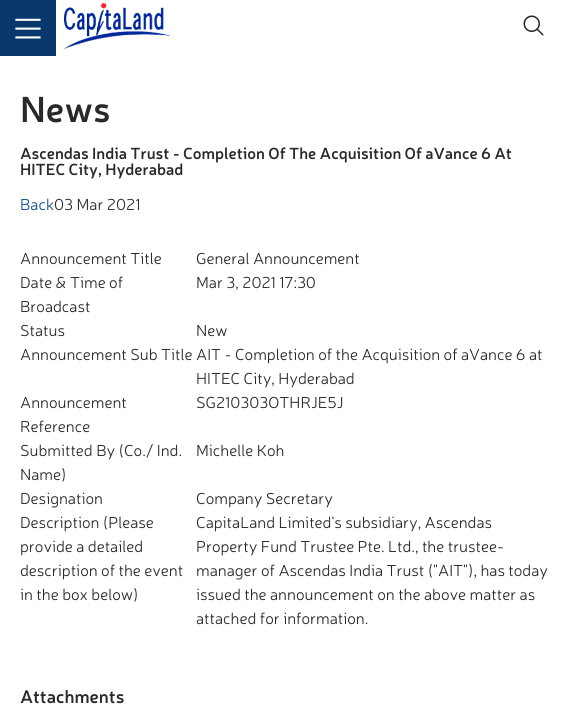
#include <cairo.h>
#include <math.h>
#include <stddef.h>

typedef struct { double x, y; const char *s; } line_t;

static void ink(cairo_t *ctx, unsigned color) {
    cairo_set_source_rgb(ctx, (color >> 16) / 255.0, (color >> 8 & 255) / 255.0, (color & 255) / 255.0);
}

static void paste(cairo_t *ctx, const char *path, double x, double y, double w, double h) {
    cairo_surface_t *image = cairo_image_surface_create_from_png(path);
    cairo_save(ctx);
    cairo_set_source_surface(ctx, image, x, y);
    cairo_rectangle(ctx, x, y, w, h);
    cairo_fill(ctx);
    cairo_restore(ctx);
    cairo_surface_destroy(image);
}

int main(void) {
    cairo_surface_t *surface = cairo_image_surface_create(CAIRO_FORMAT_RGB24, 570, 719);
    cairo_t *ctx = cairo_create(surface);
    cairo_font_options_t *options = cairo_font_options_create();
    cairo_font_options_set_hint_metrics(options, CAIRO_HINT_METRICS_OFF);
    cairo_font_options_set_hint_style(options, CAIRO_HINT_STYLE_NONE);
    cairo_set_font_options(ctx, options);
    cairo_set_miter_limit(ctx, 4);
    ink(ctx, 0xFFFFFF);
    cairo_paint(ctx);
    ink(ctx, 0x08386B);
    cairo_rectangle(ctx, 0, 0, 56, 56);
    cairo_fill(ctx);
    paste(ctx, "media/1.png", 15, 18, 26, 21);
    paste(ctx, "media/2.png", 64, 2, 107, 47);
    paste(ctx, "media/3.png", 523, 15, 21, 21);
    cairo_select_font_face(ctx, "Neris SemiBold", CAIRO_FONT_SLANT_NORMAL, CAIRO_FONT_WEIGHT_NORMAL);
    cairo_set_font_size(ctx, 36);
    ink(ctx, 0x292929);
    cairo_move_to(ctx, 20, 122);
    cairo_show_text(ctx, "News");
    cairo_set_font_size(ctx, 16);
    cairo_move_to(ctx, 20, 159);
    cairo_show_text(ctx, "Ascendas India Trust - Completion Of The Acquisition Of aVance 6 At");
    cairo_move_to(ctx, 20, 175);
    cairo_show_text(ctx, "HITEC City, Hyderabad");
    cairo_select_font_face(ctx, "Neris Light", CAIRO_FONT_SLANT_NORMAL, CAIRO_FONT_WEIGHT_NORMAL);
    ink(ctx, 0x114D8D);
    cairo_move_to(ctx, 20, 210);
    cairo_show_text(ctx, "Back");
    ink(ctx, 0x292929);
    {
        static const line_t items[] = {
            {54, 210, "03 Mar 2021"},
            {20, 264, "Announcement Title"},
            {196, 264, "General Announcement"},
            {20, 288, "Date & Time of"},
            {20, 312, "Broadcast"},
            {196, 288, "Mar 3, 2021 17:30"},
            {20, 336, "Status"},
            {196, 336, "New"},
            {20, 360, "Announcement Sub Title"},
            {196, 360, "AIT - Completion of the Acquisition of aVance 6 at"},
            {196, 384, "HITEC City, Hyderabad"},
            {20, 408, "Announcement"},
            {20, 432, "Reference"},
            {196, 408, "SG210303OTHRJE5J"},
            {20, 456, "Submitted By (Co./ Ind."},
            {20, 480, "Name)"},
            {196, 456, "Michelle Koh"},
            {20, 504, "Designation"},
            {196, 504, "Company Secretary"},
            {20, 528, "Description (Please"},
            {20, 552, "provide a detailed"},
            {20, 576, "description of the event"},
            {20, 600, "in the box below)"},
            {196, 528, "CapitaLand Limited's subsidiary, Ascendas"},
            {196, 552, "Property Fund Trustee Pte. Ltd., the trustee-"},
            {196, 576, "manager of Ascendas India Trust (\"AIT\"), has today"},
            {196, 600, "issued the announcement on the above matter as"},
            {196, 624, "attached for information."},
        };
        for (size_t i = 0; i < sizeof items / sizeof *items; i++) {
            cairo_move_to(ctx, items[i].x, items[i].y);
            cairo_show_text(ctx, items[i].s);
        }
    }
    cairo_select_font_face(ctx, "Neris SemiBold", CAIRO_FONT_SLANT_NORMAL, CAIRO_FONT_WEIGHT_NORMAL);
    cairo_set_font_size(ctx, 18);
    cairo_move_to(ctx, 20, 703);
    cairo_show_text(ctx, "Attachments");
    cairo_surface_write_to_png(surface, "image.png");
    cairo_font_options_destroy(options);
    cairo_destroy(ctx);
    cairo_surface_destroy(surface);
    return 0;
}
